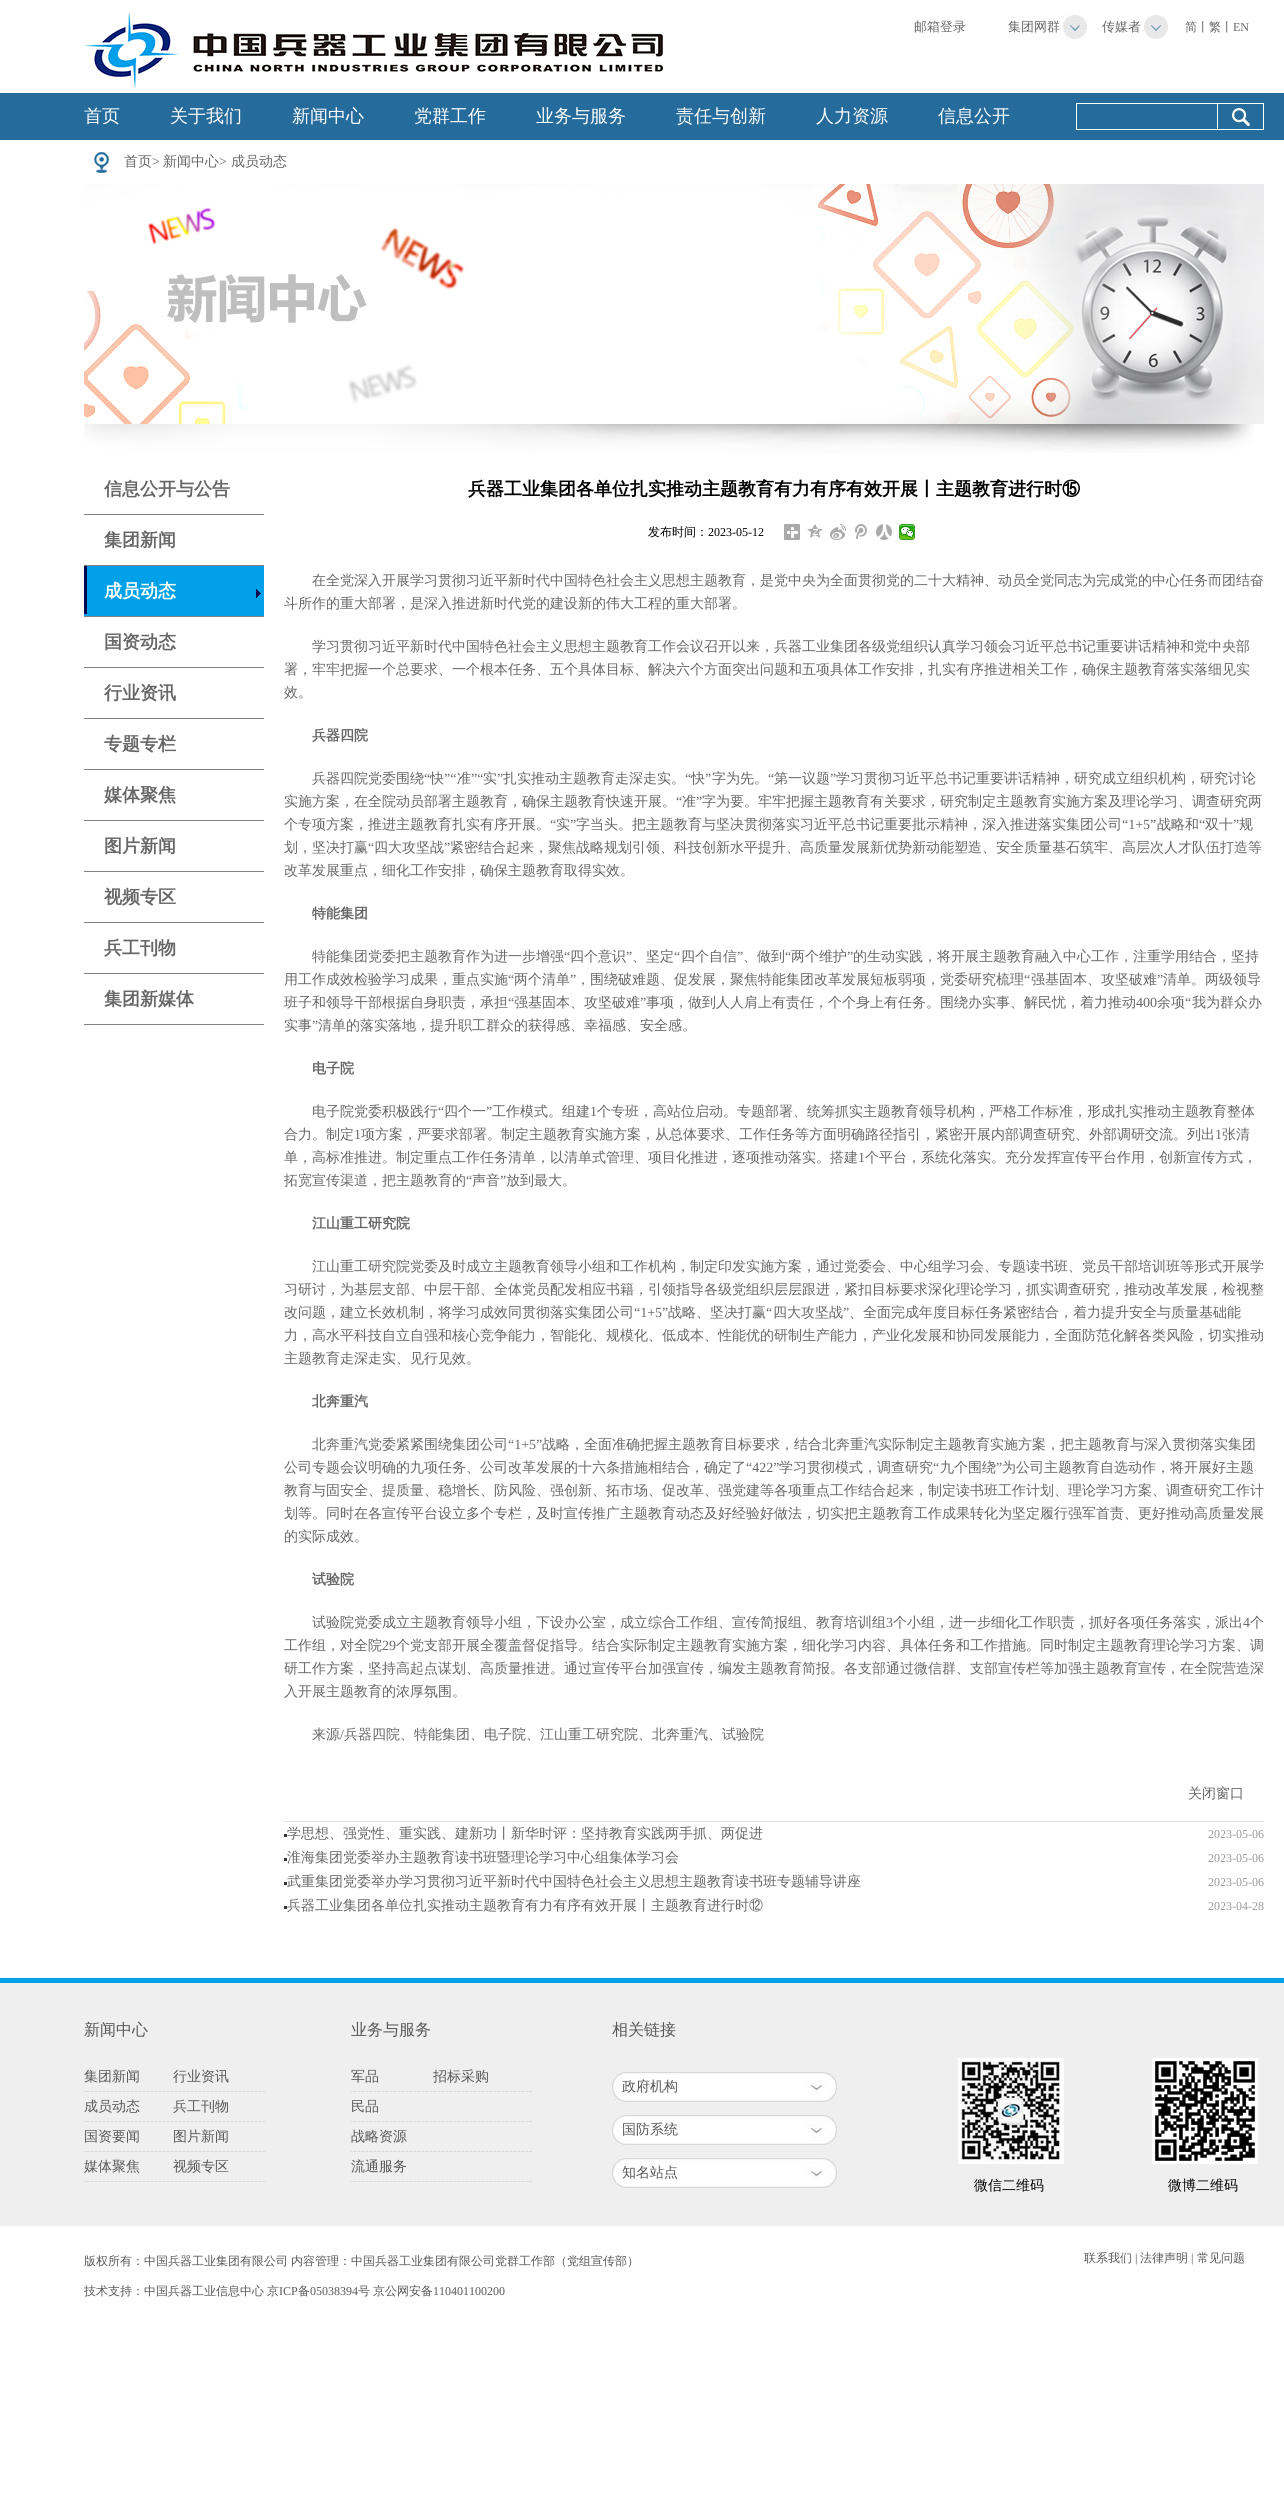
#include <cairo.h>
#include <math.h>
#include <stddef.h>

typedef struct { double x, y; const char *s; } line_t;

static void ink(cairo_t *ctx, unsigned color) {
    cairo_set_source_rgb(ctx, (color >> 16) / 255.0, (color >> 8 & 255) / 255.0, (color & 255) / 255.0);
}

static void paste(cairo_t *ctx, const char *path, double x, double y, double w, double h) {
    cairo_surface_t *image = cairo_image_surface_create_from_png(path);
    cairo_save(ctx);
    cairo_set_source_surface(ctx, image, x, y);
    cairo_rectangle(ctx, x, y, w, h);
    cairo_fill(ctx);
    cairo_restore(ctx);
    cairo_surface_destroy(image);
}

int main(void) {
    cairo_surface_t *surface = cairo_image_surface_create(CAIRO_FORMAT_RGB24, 1284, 2518);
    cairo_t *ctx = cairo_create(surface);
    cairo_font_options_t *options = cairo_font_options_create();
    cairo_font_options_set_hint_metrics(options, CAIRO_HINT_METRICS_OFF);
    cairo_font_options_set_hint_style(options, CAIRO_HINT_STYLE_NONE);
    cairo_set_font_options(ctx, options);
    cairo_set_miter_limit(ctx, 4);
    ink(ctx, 0xFFFFFF);
    cairo_paint(ctx);
    paste(ctx, "media/1.png", 84, 12, 579, 76);
    cairo_select_font_face(ctx, "WenQuanYi Zen Hei Medium", CAIRO_FONT_SLANT_NORMAL, CAIRO_FONT_WEIGHT_NORMAL);
    cairo_set_font_size(ctx, 13);
    ink(ctx, 0x666666);
    cairo_move_to(ctx, 914, 31);
    cairo_show_text(ctx, "邮箱登录");
    paste(ctx, "media/2.png", 1063, 15, 24, 24);
    cairo_move_to(ctx, 1008, 31);
    cairo_show_text(ctx, "集团网群");
    paste(ctx, "media/2.png", 1144, 15, 24, 24);
    cairo_move_to(ctx, 1102, 31);
    cairo_show_text(ctx, "传媒者");
    cairo_set_font_size(ctx, 12);
    cairo_move_to(ctx, 1185, 31);
    cairo_show_text(ctx, "简丨繁丨");
    cairo_select_font_face(ctx, "Liberation Serif", CAIRO_FONT_SLANT_NORMAL, CAIRO_FONT_WEIGHT_NORMAL);
    cairo_move_to(ctx, 1233, 31);
    cairo_show_text(ctx, "EN");
    ink(ctx, 0x256B9C);
    cairo_rectangle(ctx, 0, 93, 1284, 47);
    cairo_fill(ctx);
    cairo_select_font_face(ctx, "WenQuanYi Zen Hei Medium", CAIRO_FONT_SLANT_NORMAL, CAIRO_FONT_WEIGHT_NORMAL);
    cairo_set_font_size(ctx, 18);
    ink(ctx, 0xFFFFFF);
    {
        static const line_t items[] = {
            {84, 122, "首页"},
            {170, 122, "关于我们"},
            {292, 122, "新闻中心"},
            {414, 122, "党群工作"},
            {536, 122, "业务与服务"},
            {676, 122, "责任与创新"},
            {816, 122, "人力资源"},
            {938, 122, "信息公开"},
        };
        for (size_t i = 0; i < sizeof items / sizeof *items; i++) {
            cairo_move_to(ctx, items[i].x, items[i].y);
            cairo_show_text(ctx, items[i].s);
        }
    }
    cairo_rectangle(ctx, 1076.5, 103.5, 187, 26);
    cairo_set_line_width(ctx, 1);
    cairo_stroke(ctx);
    cairo_rectangle(ctx, 1217, 104, 1, 25);
    cairo_fill(ctx);
    paste(ctx, "media/3.png", 1232, 108, 18, 18);
    paste(ctx, "media/4.png", 94, 152, 15, 21);
    cairo_set_font_size(ctx, 14);
    ink(ctx, 0x666666);
    cairo_move_to(ctx, 124, 166);
    cairo_show_text(ctx, "首页");
    cairo_select_font_face(ctx, "Liberation Serif", CAIRO_FONT_SLANT_NORMAL, CAIRO_FONT_WEIGHT_NORMAL);
    cairo_move_to(ctx, 152, 166);
    cairo_show_text(ctx, ">");
    cairo_select_font_face(ctx, "WenQuanYi Zen Hei Medium", CAIRO_FONT_SLANT_NORMAL, CAIRO_FONT_WEIGHT_NORMAL);
    cairo_move_to(ctx, 163, 166);
    cairo_show_text(ctx, "新闻中心");
    cairo_select_font_face(ctx, "Liberation Serif", CAIRO_FONT_SLANT_NORMAL, CAIRO_FONT_WEIGHT_NORMAL);
    cairo_move_to(ctx, 219, 166);
    cairo_show_text(ctx, ">");
    cairo_select_font_face(ctx, "WenQuanYi Zen Hei Medium", CAIRO_FONT_SLANT_NORMAL, CAIRO_FONT_WEIGHT_NORMAL);
    cairo_move_to(ctx, 231, 166);
    cairo_show_text(ctx, "成员动态");
    paste(ctx, "media/5.png", 84, 184, 1180, 240);
    paste(ctx, "media/6.png", 84, 424, 1170, 29);
    ink(ctx, 0x808080);
    cairo_rectangle(ctx, 84, 514, 180, 1);
    cairo_fill(ctx);
    cairo_select_font_face(ctx, "WenQuanYi Zen Hei", CAIRO_FONT_SLANT_NORMAL, CAIRO_FONT_WEIGHT_BOLD);
    cairo_set_font_size(ctx, 18);
    ink(ctx, 0x666666);
    cairo_move_to(ctx, 104, 495);
    cairo_show_text(ctx, "信息公开与公告");
    ink(ctx, 0x808080);
    cairo_rectangle(ctx, 84, 565, 180, 1);
    cairo_fill(ctx);
    ink(ctx, 0x666666);
    cairo_move_to(ctx, 104, 546);
    cairo_show_text(ctx, "集团新闻");
    ink(ctx, 0x00A1E9);
    cairo_rectangle(ctx, 84, 566, 180, 50);
    cairo_fill(ctx);
    paste(ctx, "media/7.png", 84, 566, 177, 48);
    ink(ctx, 0x808080);
    cairo_rectangle(ctx, 84, 616, 180, 1);
    cairo_fill(ctx);
    ink(ctx, 0xFFFFFF);
    cairo_move_to(ctx, 104, 597);
    cairo_show_text(ctx, "成员动态");
    ink(ctx, 0x808080);
    cairo_rectangle(ctx, 84, 667, 180, 1);
    cairo_fill(ctx);
    ink(ctx, 0x666666);
    cairo_move_to(ctx, 104, 648);
    cairo_show_text(ctx, "国资动态");
    ink(ctx, 0x808080);
    cairo_rectangle(ctx, 84, 718, 180, 1);
    cairo_fill(ctx);
    ink(ctx, 0x666666);
    cairo_move_to(ctx, 104, 699);
    cairo_show_text(ctx, "行业资讯");
    ink(ctx, 0x808080);
    cairo_rectangle(ctx, 84, 769, 180, 1);
    cairo_fill(ctx);
    ink(ctx, 0x666666);
    cairo_move_to(ctx, 104, 750);
    cairo_show_text(ctx, "专题专栏");
    ink(ctx, 0x808080);
    cairo_rectangle(ctx, 84, 820, 180, 1);
    cairo_fill(ctx);
    ink(ctx, 0x666666);
    cairo_move_to(ctx, 104, 801);
    cairo_show_text(ctx, "媒体聚焦");
    ink(ctx, 0x808080);
    cairo_rectangle(ctx, 84, 871, 180, 1);
    cairo_fill(ctx);
    ink(ctx, 0x666666);
    cairo_move_to(ctx, 104, 852);
    cairo_show_text(ctx, "图片新闻");
    ink(ctx, 0x808080);
    cairo_rectangle(ctx, 84, 922, 180, 1);
    cairo_fill(ctx);
    ink(ctx, 0x666666);
    cairo_move_to(ctx, 104, 903);
    cairo_show_text(ctx, "视频专区");
    ink(ctx, 0x808080);
    cairo_rectangle(ctx, 84, 973, 180, 1);
    cairo_fill(ctx);
    ink(ctx, 0x666666);
    cairo_move_to(ctx, 104, 954);
    cairo_show_text(ctx, "兵工刊物");
    ink(ctx, 0x808080);
    cairo_rectangle(ctx, 84, 1024, 180, 1);
    cairo_fill(ctx);
    ink(ctx, 0x666666);
    cairo_move_to(ctx, 104, 1005);
    cairo_show_text(ctx, "集团新媒体");
    ink(ctx, 0x000000);
    cairo_move_to(ctx, 468, 495);
    cairo_show_text(ctx, "兵器工业集团各单位扎实推动主题教育有力有序有效开展丨主题教育进行时⑮");
    cairo_select_font_face(ctx, "WenQuanYi Zen Hei Medium", CAIRO_FONT_SLANT_NORMAL, CAIRO_FONT_WEIGHT_NORMAL);
    cairo_set_font_size(ctx, 12);
    cairo_move_to(ctx, 648, 536);
    cairo_show_text(ctx, "发布时间：");
    cairo_select_font_face(ctx, "Liberation Serif", CAIRO_FONT_SLANT_NORMAL, CAIRO_FONT_WEIGHT_NORMAL);
    cairo_move_to(ctx, 708, 536);
    cairo_show_text(ctx, "2023-05-12");
    paste(ctx, "media/8.png", 784, 524, 16, 16);
    paste(ctx, "media/9.png", 807, 524, 16, 14);
    paste(ctx, "media/10.png", 830, 524, 16, 16);
    paste(ctx, "media/11.png", 855, 524, 12, 15);
    paste(ctx, "media/12.png", 876, 524, 16, 16);
    paste(ctx, "media/13.png", 899, 524, 16, 16);
    cairo_select_font_face(ctx, "WenQuanYi Zen Hei Medium", CAIRO_FONT_SLANT_NORMAL, CAIRO_FONT_WEIGHT_NORMAL);
    cairo_set_font_size(ctx, 14);
    ink(ctx, 0x666666);
    {
        static const line_t items[] = {
            {312, 585, "在全党深入开展学习贯彻习近平新时代中国特色社会主义思想主题教育，是党中央为全面贯彻党的二十大精神、动员全党同志为完成党的中心任务而团结奋"},
            {284, 608, "斗所作的重大部署，是深入推进新时代党的建设新的伟大工程的重大部署。"},
            {312, 651, "学习贯彻习近平新时代中国特色社会主义思想主题教育工作会议召开以来，兵器工业集团各级党组织认真学习领会习近平总书记重要讲话精神和党中央部"},
            {284, 674, "署，牢牢把握一个总要求、一个根本任务、五个具体目标、解决六个方面突出问题和五项具体工作安排，扎实有序推进相关工作，确保主题教育落实落细见实"},
            {284, 697, "效。"},
        };
        for (size_t i = 0; i < sizeof items / sizeof *items; i++) {
            cairo_move_to(ctx, items[i].x, items[i].y);
            cairo_show_text(ctx, items[i].s);
        }
    }
    cairo_select_font_face(ctx, "WenQuanYi Zen Hei", CAIRO_FONT_SLANT_NORMAL, CAIRO_FONT_WEIGHT_BOLD);
    cairo_move_to(ctx, 312, 740);
    cairo_show_text(ctx, "兵器四院");
    cairo_select_font_face(ctx, "WenQuanYi Zen Hei Medium", CAIRO_FONT_SLANT_NORMAL, CAIRO_FONT_WEIGHT_NORMAL);
    cairo_move_to(ctx, 312, 783);
    cairo_show_text(ctx, "兵器四院党委围绕");
    cairo_select_font_face(ctx, "Liberation Serif", CAIRO_FONT_SLANT_NORMAL, CAIRO_FONT_WEIGHT_NORMAL);
    cairo_move_to(ctx, 424, 783);
    cairo_show_text(ctx, "“");
    cairo_select_font_face(ctx, "WenQuanYi Zen Hei Medium", CAIRO_FONT_SLANT_NORMAL, CAIRO_FONT_WEIGHT_NORMAL);
    cairo_move_to(ctx, 430, 783);
    cairo_show_text(ctx, "快");
    cairo_select_font_face(ctx, "Liberation Serif", CAIRO_FONT_SLANT_NORMAL, CAIRO_FONT_WEIGHT_NORMAL);
    cairo_move_to(ctx, 444, 783);
    cairo_show_text(ctx, "”“");
    cairo_select_font_face(ctx, "WenQuanYi Zen Hei Medium", CAIRO_FONT_SLANT_NORMAL, CAIRO_FONT_WEIGHT_NORMAL);
    cairo_move_to(ctx, 457, 783);
    cairo_show_text(ctx, "准");
    cairo_select_font_face(ctx, "Liberation Serif", CAIRO_FONT_SLANT_NORMAL, CAIRO_FONT_WEIGHT_NORMAL);
    cairo_move_to(ctx, 471, 783);
    cairo_show_text(ctx, "”“");
    cairo_select_font_face(ctx, "WenQuanYi Zen Hei Medium", CAIRO_FONT_SLANT_NORMAL, CAIRO_FONT_WEIGHT_NORMAL);
    cairo_move_to(ctx, 483, 783);
    cairo_show_text(ctx, "实");
    cairo_select_font_face(ctx, "Liberation Serif", CAIRO_FONT_SLANT_NORMAL, CAIRO_FONT_WEIGHT_NORMAL);
    cairo_move_to(ctx, 497, 783);
    cairo_show_text(ctx, "”");
    cairo_select_font_face(ctx, "WenQuanYi Zen Hei Medium", CAIRO_FONT_SLANT_NORMAL, CAIRO_FONT_WEIGHT_NORMAL);
    cairo_move_to(ctx, 503, 783);
    cairo_show_text(ctx, "扎实推动主题教育走深走实。");
    cairo_select_font_face(ctx, "Liberation Serif", CAIRO_FONT_SLANT_NORMAL, CAIRO_FONT_WEIGHT_NORMAL);
    cairo_move_to(ctx, 685, 783);
    cairo_show_text(ctx, "“");
    cairo_select_font_face(ctx, "WenQuanYi Zen Hei Medium", CAIRO_FONT_SLANT_NORMAL, CAIRO_FONT_WEIGHT_NORMAL);
    cairo_move_to(ctx, 691, 783);
    cairo_show_text(ctx, "快");
    cairo_select_font_face(ctx, "Liberation Serif", CAIRO_FONT_SLANT_NORMAL, CAIRO_FONT_WEIGHT_NORMAL);
    cairo_move_to(ctx, 705, 783);
    cairo_show_text(ctx, "”");
    cairo_select_font_face(ctx, "WenQuanYi Zen Hei Medium", CAIRO_FONT_SLANT_NORMAL, CAIRO_FONT_WEIGHT_NORMAL);
    cairo_move_to(ctx, 712, 783);
    cairo_show_text(ctx, "字为先。");
    cairo_select_font_face(ctx, "Liberation Serif", CAIRO_FONT_SLANT_NORMAL, CAIRO_FONT_WEIGHT_NORMAL);
    cairo_move_to(ctx, 768, 783);
    cairo_show_text(ctx, "“");
    cairo_select_font_face(ctx, "WenQuanYi Zen Hei Medium", CAIRO_FONT_SLANT_NORMAL, CAIRO_FONT_WEIGHT_NORMAL);
    cairo_move_to(ctx, 774, 783);
    cairo_show_text(ctx, "第一议题");
    cairo_select_font_face(ctx, "Liberation Serif", CAIRO_FONT_SLANT_NORMAL, CAIRO_FONT_WEIGHT_NORMAL);
    cairo_move_to(ctx, 830, 783);
    cairo_show_text(ctx, "”");
    cairo_select_font_face(ctx, "WenQuanYi Zen Hei Medium", CAIRO_FONT_SLANT_NORMAL, CAIRO_FONT_WEIGHT_NORMAL);
    cairo_move_to(ctx, 836, 783);
    cairo_show_text(ctx, "学习贯彻习近平总书记重要讲话精神，研究成立组织机构，研究讨论");
    cairo_move_to(ctx, 284, 806);
    cairo_show_text(ctx, "实施方案，在全院动员部署主题教育，确保主题教育快速开展。");
    cairo_select_font_face(ctx, "Liberation Serif", CAIRO_FONT_SLANT_NORMAL, CAIRO_FONT_WEIGHT_NORMAL);
    cairo_move_to(ctx, 676, 806);
    cairo_show_text(ctx, "“");
    cairo_select_font_face(ctx, "WenQuanYi Zen Hei Medium", CAIRO_FONT_SLANT_NORMAL, CAIRO_FONT_WEIGHT_NORMAL);
    cairo_move_to(ctx, 682, 806);
    cairo_show_text(ctx, "准");
    cairo_select_font_face(ctx, "Liberation Serif", CAIRO_FONT_SLANT_NORMAL, CAIRO_FONT_WEIGHT_NORMAL);
    cairo_move_to(ctx, 696, 806);
    cairo_show_text(ctx, "”");
    cairo_select_font_face(ctx, "WenQuanYi Zen Hei Medium", CAIRO_FONT_SLANT_NORMAL, CAIRO_FONT_WEIGHT_NORMAL);
    cairo_move_to(ctx, 702, 806);
    cairo_show_text(ctx, "字为要。牢牢把握主题教育有关要求，研究制定主题教育实施方案及理论学习、调查研究两");
    cairo_move_to(ctx, 284, 829);
    cairo_show_text(ctx, "个专项方案，推进主题教育扎实有序开展。");
    cairo_select_font_face(ctx, "Liberation Serif", CAIRO_FONT_SLANT_NORMAL, CAIRO_FONT_WEIGHT_NORMAL);
    cairo_move_to(ctx, 550, 829);
    cairo_show_text(ctx, "“");
    cairo_select_font_face(ctx, "WenQuanYi Zen Hei Medium", CAIRO_FONT_SLANT_NORMAL, CAIRO_FONT_WEIGHT_NORMAL);
    cairo_move_to(ctx, 556, 829);
    cairo_show_text(ctx, "实");
    cairo_select_font_face(ctx, "Liberation Serif", CAIRO_FONT_SLANT_NORMAL, CAIRO_FONT_WEIGHT_NORMAL);
    cairo_move_to(ctx, 570, 829);
    cairo_show_text(ctx, "”");
    cairo_select_font_face(ctx, "WenQuanYi Zen Hei Medium", CAIRO_FONT_SLANT_NORMAL, CAIRO_FONT_WEIGHT_NORMAL);
    cairo_move_to(ctx, 576, 829);
    cairo_show_text(ctx, "字当头。把主题教育与坚决贯彻落实习近平总书记重要批示精神，深入推进落实集团公司");
    cairo_select_font_face(ctx, "Liberation Serif", CAIRO_FONT_SLANT_NORMAL, CAIRO_FONT_WEIGHT_NORMAL);
    cairo_move_to(ctx, 1122, 829);
    cairo_show_text(ctx, "“1+5”");
    cairo_select_font_face(ctx, "WenQuanYi Zen Hei Medium", CAIRO_FONT_SLANT_NORMAL, CAIRO_FONT_WEIGHT_NORMAL);
    cairo_move_to(ctx, 1157, 829);
    cairo_show_text(ctx, "战略和");
    cairo_select_font_face(ctx, "Liberation Serif", CAIRO_FONT_SLANT_NORMAL, CAIRO_FONT_WEIGHT_NORMAL);
    cairo_move_to(ctx, 1199, 829);
    cairo_show_text(ctx, "“");
    cairo_select_font_face(ctx, "WenQuanYi Zen Hei Medium", CAIRO_FONT_SLANT_NORMAL, CAIRO_FONT_WEIGHT_NORMAL);
    cairo_move_to(ctx, 1205, 829);
    cairo_show_text(ctx, "双十");
    cairo_select_font_face(ctx, "Liberation Serif", CAIRO_FONT_SLANT_NORMAL, CAIRO_FONT_WEIGHT_NORMAL);
    cairo_move_to(ctx, 1233, 829);
    cairo_show_text(ctx, "”");
    cairo_select_font_face(ctx, "WenQuanYi Zen Hei Medium", CAIRO_FONT_SLANT_NORMAL, CAIRO_FONT_WEIGHT_NORMAL);
    cairo_move_to(ctx, 1239, 829);
    cairo_show_text(ctx, "规");
    cairo_move_to(ctx, 284, 852);
    cairo_show_text(ctx, "划，坚决打赢");
    cairo_select_font_face(ctx, "Liberation Serif", CAIRO_FONT_SLANT_NORMAL, CAIRO_FONT_WEIGHT_NORMAL);
    cairo_move_to(ctx, 368, 852);
    cairo_show_text(ctx, "“");
    cairo_select_font_face(ctx, "WenQuanYi Zen Hei Medium", CAIRO_FONT_SLANT_NORMAL, CAIRO_FONT_WEIGHT_NORMAL);
    cairo_move_to(ctx, 374, 852);
    cairo_show_text(ctx, "四大攻坚战");
    cairo_select_font_face(ctx, "Liberation Serif", CAIRO_FONT_SLANT_NORMAL, CAIRO_FONT_WEIGHT_NORMAL);
    cairo_move_to(ctx, 444, 852);
    cairo_show_text(ctx, "”");
    cairo_select_font_face(ctx, "WenQuanYi Zen Hei Medium", CAIRO_FONT_SLANT_NORMAL, CAIRO_FONT_WEIGHT_NORMAL);
    cairo_move_to(ctx, 450, 852);
    cairo_show_text(ctx, "紧密结合起来，聚焦战略规划引领、科技创新水平提升、高质量发展新优势新动能塑造、安全质量基石筑牢、高层次人才队伍打造等");
    cairo_move_to(ctx, 284, 875);
    cairo_show_text(ctx, "改革发展重点，细化工作安排，确保主题教育取得实效。");
    cairo_select_font_face(ctx, "WenQuanYi Zen Hei", CAIRO_FONT_SLANT_NORMAL, CAIRO_FONT_WEIGHT_BOLD);
    cairo_move_to(ctx, 312, 918);
    cairo_show_text(ctx, "特能集团");
    cairo_select_font_face(ctx, "WenQuanYi Zen Hei Medium", CAIRO_FONT_SLANT_NORMAL, CAIRO_FONT_WEIGHT_NORMAL);
    cairo_move_to(ctx, 312, 961);
    cairo_show_text(ctx, "特能集团党委把主题教育作为进一步增强");
    cairo_select_font_face(ctx, "Liberation Serif", CAIRO_FONT_SLANT_NORMAL, CAIRO_FONT_WEIGHT_NORMAL);
    cairo_move_to(ctx, 564, 961);
    cairo_show_text(ctx, "“");
    cairo_select_font_face(ctx, "WenQuanYi Zen Hei Medium", CAIRO_FONT_SLANT_NORMAL, CAIRO_FONT_WEIGHT_NORMAL);
    cairo_move_to(ctx, 570, 961);
    cairo_show_text(ctx, "四个意识");
    cairo_select_font_face(ctx, "Liberation Serif", CAIRO_FONT_SLANT_NORMAL, CAIRO_FONT_WEIGHT_NORMAL);
    cairo_move_to(ctx, 626, 961);
    cairo_show_text(ctx, "”");
    cairo_select_font_face(ctx, "WenQuanYi Zen Hei Medium", CAIRO_FONT_SLANT_NORMAL, CAIRO_FONT_WEIGHT_NORMAL);
    cairo_move_to(ctx, 632, 961);
    cairo_show_text(ctx, "、坚定");
    cairo_select_font_face(ctx, "Liberation Serif", CAIRO_FONT_SLANT_NORMAL, CAIRO_FONT_WEIGHT_NORMAL);
    cairo_move_to(ctx, 674, 961);
    cairo_show_text(ctx, "“");
    cairo_select_font_face(ctx, "WenQuanYi Zen Hei Medium", CAIRO_FONT_SLANT_NORMAL, CAIRO_FONT_WEIGHT_NORMAL);
    cairo_move_to(ctx, 681, 961);
    cairo_show_text(ctx, "四个自信");
    cairo_select_font_face(ctx, "Liberation Serif", CAIRO_FONT_SLANT_NORMAL, CAIRO_FONT_WEIGHT_NORMAL);
    cairo_move_to(ctx, 737, 961);
    cairo_show_text(ctx, "”");
    cairo_select_font_face(ctx, "WenQuanYi Zen Hei Medium", CAIRO_FONT_SLANT_NORMAL, CAIRO_FONT_WEIGHT_NORMAL);
    cairo_move_to(ctx, 743, 961);
    cairo_show_text(ctx, "、做到");
    cairo_select_font_face(ctx, "Liberation Serif", CAIRO_FONT_SLANT_NORMAL, CAIRO_FONT_WEIGHT_NORMAL);
    cairo_move_to(ctx, 785, 961);
    cairo_show_text(ctx, "“");
    cairo_select_font_face(ctx, "WenQuanYi Zen Hei Medium", CAIRO_FONT_SLANT_NORMAL, CAIRO_FONT_WEIGHT_NORMAL);
    cairo_move_to(ctx, 791, 961);
    cairo_show_text(ctx, "两个维护");
    cairo_select_font_face(ctx, "Liberation Serif", CAIRO_FONT_SLANT_NORMAL, CAIRO_FONT_WEIGHT_NORMAL);
    cairo_move_to(ctx, 847, 961);
    cairo_show_text(ctx, "”");
    cairo_select_font_face(ctx, "WenQuanYi Zen Hei Medium", CAIRO_FONT_SLANT_NORMAL, CAIRO_FONT_WEIGHT_NORMAL);
    cairo_move_to(ctx, 853, 961);
    cairo_show_text(ctx, "的生动实践，将开展主题教育融入中心工作，注重学用结合，坚持");
    cairo_move_to(ctx, 284, 984);
    cairo_show_text(ctx, "用工作成效检验学习成果，重点实施");
    cairo_select_font_face(ctx, "Liberation Serif", CAIRO_FONT_SLANT_NORMAL, CAIRO_FONT_WEIGHT_NORMAL);
    cairo_move_to(ctx, 508, 984);
    cairo_show_text(ctx, "“");
    cairo_select_font_face(ctx, "WenQuanYi Zen Hei Medium", CAIRO_FONT_SLANT_NORMAL, CAIRO_FONT_WEIGHT_NORMAL);
    cairo_move_to(ctx, 514, 984);
    cairo_show_text(ctx, "两个清单");
    cairo_select_font_face(ctx, "Liberation Serif", CAIRO_FONT_SLANT_NORMAL, CAIRO_FONT_WEIGHT_NORMAL);
    cairo_move_to(ctx, 570, 984);
    cairo_show_text(ctx, "”");
    cairo_select_font_face(ctx, "WenQuanYi Zen Hei Medium", CAIRO_FONT_SLANT_NORMAL, CAIRO_FONT_WEIGHT_NORMAL);
    cairo_move_to(ctx, 576, 984);
    cairo_show_text(ctx, "，围绕破难题、促发展，聚焦特能集团改革发展短板弱项，党委研究梳理");
    cairo_select_font_face(ctx, "Liberation Serif", CAIRO_FONT_SLANT_NORMAL, CAIRO_FONT_WEIGHT_NORMAL);
    cairo_move_to(ctx, 1024, 984);
    cairo_show_text(ctx, "“");
    cairo_select_font_face(ctx, "WenQuanYi Zen Hei Medium", CAIRO_FONT_SLANT_NORMAL, CAIRO_FONT_WEIGHT_NORMAL);
    cairo_move_to(ctx, 1031, 984);
    cairo_show_text(ctx, "强基固本、攻坚破难");
    cairo_select_font_face(ctx, "Liberation Serif", CAIRO_FONT_SLANT_NORMAL, CAIRO_FONT_WEIGHT_NORMAL);
    cairo_move_to(ctx, 1157, 984);
    cairo_show_text(ctx, "”");
    cairo_select_font_face(ctx, "WenQuanYi Zen Hei Medium", CAIRO_FONT_SLANT_NORMAL, CAIRO_FONT_WEIGHT_NORMAL);
    cairo_move_to(ctx, 1163, 984);
    cairo_show_text(ctx, "清单。两级领导");
    cairo_move_to(ctx, 284, 1007);
    cairo_show_text(ctx, "班子和领导干部根据自身职责，承担");
    cairo_select_font_face(ctx, "Liberation Serif", CAIRO_FONT_SLANT_NORMAL, CAIRO_FONT_WEIGHT_NORMAL);
    cairo_move_to(ctx, 508, 1007);
    cairo_show_text(ctx, "“");
    cairo_select_font_face(ctx, "WenQuanYi Zen Hei Medium", CAIRO_FONT_SLANT_NORMAL, CAIRO_FONT_WEIGHT_NORMAL);
    cairo_move_to(ctx, 514, 1007);
    cairo_show_text(ctx, "强基固本、攻坚破难");
    cairo_select_font_face(ctx, "Liberation Serif", CAIRO_FONT_SLANT_NORMAL, CAIRO_FONT_WEIGHT_NORMAL);
    cairo_move_to(ctx, 640, 1007);
    cairo_show_text(ctx, "”");
    cairo_select_font_face(ctx, "WenQuanYi Zen Hei Medium", CAIRO_FONT_SLANT_NORMAL, CAIRO_FONT_WEIGHT_NORMAL);
    cairo_move_to(ctx, 646, 1007);
    cairo_show_text(ctx, "事项，做到人人肩上有责任，个个身上有任务。围绕办实事、解民忧，着力推动");
    cairo_select_font_face(ctx, "Liberation Serif", CAIRO_FONT_SLANT_NORMAL, CAIRO_FONT_WEIGHT_NORMAL);
    cairo_move_to(ctx, 1136, 1007);
    cairo_show_text(ctx, "400");
    cairo_select_font_face(ctx, "WenQuanYi Zen Hei Medium", CAIRO_FONT_SLANT_NORMAL, CAIRO_FONT_WEIGHT_NORMAL);
    cairo_move_to(ctx, 1157, 1007);
    cairo_show_text(ctx, "余项");
    cairo_select_font_face(ctx, "Liberation Serif", CAIRO_FONT_SLANT_NORMAL, CAIRO_FONT_WEIGHT_NORMAL);
    cairo_move_to(ctx, 1185, 1007);
    cairo_show_text(ctx, "“");
    cairo_select_font_face(ctx, "WenQuanYi Zen Hei Medium", CAIRO_FONT_SLANT_NORMAL, CAIRO_FONT_WEIGHT_NORMAL);
    cairo_move_to(ctx, 1192, 1007);
    cairo_show_text(ctx, "我为群众办");
    cairo_move_to(ctx, 284, 1030);
    cairo_show_text(ctx, "实事");
    cairo_select_font_face(ctx, "Liberation Serif", CAIRO_FONT_SLANT_NORMAL, CAIRO_FONT_WEIGHT_NORMAL);
    cairo_move_to(ctx, 312, 1030);
    cairo_show_text(ctx, "”");
    cairo_select_font_face(ctx, "WenQuanYi Zen Hei Medium", CAIRO_FONT_SLANT_NORMAL, CAIRO_FONT_WEIGHT_NORMAL);
    cairo_move_to(ctx, 318, 1030);
    cairo_show_text(ctx, "清单的落实落地，提升职工群众的获得感、幸福感、安全感。");
    cairo_select_font_face(ctx, "WenQuanYi Zen Hei", CAIRO_FONT_SLANT_NORMAL, CAIRO_FONT_WEIGHT_BOLD);
    cairo_move_to(ctx, 312, 1073);
    cairo_show_text(ctx, "电子院");
    cairo_select_font_face(ctx, "WenQuanYi Zen Hei Medium", CAIRO_FONT_SLANT_NORMAL, CAIRO_FONT_WEIGHT_NORMAL);
    cairo_move_to(ctx, 312, 1116);
    cairo_show_text(ctx, "电子院党委积极践行");
    cairo_select_font_face(ctx, "Liberation Serif", CAIRO_FONT_SLANT_NORMAL, CAIRO_FONT_WEIGHT_NORMAL);
    cairo_move_to(ctx, 438, 1116);
    cairo_show_text(ctx, "“");
    cairo_select_font_face(ctx, "WenQuanYi Zen Hei Medium", CAIRO_FONT_SLANT_NORMAL, CAIRO_FONT_WEIGHT_NORMAL);
    cairo_move_to(ctx, 444, 1116);
    cairo_show_text(ctx, "四个一");
    cairo_select_font_face(ctx, "Liberation Serif", CAIRO_FONT_SLANT_NORMAL, CAIRO_FONT_WEIGHT_NORMAL);
    cairo_move_to(ctx, 486, 1116);
    cairo_show_text(ctx, "”");
    cairo_select_font_face(ctx, "WenQuanYi Zen Hei Medium", CAIRO_FONT_SLANT_NORMAL, CAIRO_FONT_WEIGHT_NORMAL);
    cairo_move_to(ctx, 492, 1116);
    cairo_show_text(ctx, "工作模式。组建");
    cairo_select_font_face(ctx, "Liberation Serif", CAIRO_FONT_SLANT_NORMAL, CAIRO_FONT_WEIGHT_NORMAL);
    cairo_move_to(ctx, 590, 1116);
    cairo_show_text(ctx, "1");
    cairo_select_font_face(ctx, "WenQuanYi Zen Hei Medium", CAIRO_FONT_SLANT_NORMAL, CAIRO_FONT_WEIGHT_NORMAL);
    cairo_move_to(ctx, 597, 1116);
    cairo_show_text(ctx, "个专班，高站位启动。专题部署、统筹抓实主题教育领导机构，严格工作标准，形成扎实推动主题教育整体");
    cairo_move_to(ctx, 284, 1139);
    cairo_show_text(ctx, "合力。制定");
    cairo_select_font_face(ctx, "Liberation Serif", CAIRO_FONT_SLANT_NORMAL, CAIRO_FONT_WEIGHT_NORMAL);
    cairo_move_to(ctx, 354, 1139);
    cairo_show_text(ctx, "1");
    cairo_select_font_face(ctx, "WenQuanYi Zen Hei Medium", CAIRO_FONT_SLANT_NORMAL, CAIRO_FONT_WEIGHT_NORMAL);
    cairo_move_to(ctx, 361, 1139);
    cairo_show_text(ctx, "项方案，严要求部署。制定主题教育实施方案，从总体要求、工作任务等方面明确路径指引，紧密开展内部调查研究、外部调研交流。列出");
    cairo_select_font_face(ctx, "Liberation Serif", CAIRO_FONT_SLANT_NORMAL, CAIRO_FONT_WEIGHT_NORMAL);
    cairo_move_to(ctx, 1215, 1139);
    cairo_show_text(ctx, "1");
    cairo_select_font_face(ctx, "WenQuanYi Zen Hei Medium", CAIRO_FONT_SLANT_NORMAL, CAIRO_FONT_WEIGHT_NORMAL);
    cairo_move_to(ctx, 1222, 1139);
    cairo_show_text(ctx, "张清");
    cairo_move_to(ctx, 284, 1162);
    cairo_show_text(ctx, "单，高标准推进。制定重点工作任务清单，以清单式管理、项目化推进，逐项推动落实。搭建");
    cairo_select_font_face(ctx, "Liberation Serif", CAIRO_FONT_SLANT_NORMAL, CAIRO_FONT_WEIGHT_NORMAL);
    cairo_move_to(ctx, 858, 1162);
    cairo_show_text(ctx, "1");
    cairo_select_font_face(ctx, "WenQuanYi Zen Hei Medium", CAIRO_FONT_SLANT_NORMAL, CAIRO_FONT_WEIGHT_NORMAL);
    cairo_move_to(ctx, 865, 1162);
    cairo_show_text(ctx, "个平台，系统化落实。充分发挥宣传平台作用，创新宣传方式，");
    cairo_move_to(ctx, 284, 1185);
    cairo_show_text(ctx, "拓宽宣传渠道，把主题教育的");
    cairo_select_font_face(ctx, "Liberation Serif", CAIRO_FONT_SLANT_NORMAL, CAIRO_FONT_WEIGHT_NORMAL);
    cairo_move_to(ctx, 466, 1185);
    cairo_show_text(ctx, "“");
    cairo_select_font_face(ctx, "WenQuanYi Zen Hei Medium", CAIRO_FONT_SLANT_NORMAL, CAIRO_FONT_WEIGHT_NORMAL);
    cairo_move_to(ctx, 472, 1185);
    cairo_show_text(ctx, "声音");
    cairo_select_font_face(ctx, "Liberation Serif", CAIRO_FONT_SLANT_NORMAL, CAIRO_FONT_WEIGHT_NORMAL);
    cairo_move_to(ctx, 500, 1185);
    cairo_show_text(ctx, "”");
    cairo_select_font_face(ctx, "WenQuanYi Zen Hei Medium", CAIRO_FONT_SLANT_NORMAL, CAIRO_FONT_WEIGHT_NORMAL);
    cairo_move_to(ctx, 506, 1185);
    cairo_show_text(ctx, "放到最大。");
    cairo_select_font_face(ctx, "WenQuanYi Zen Hei", CAIRO_FONT_SLANT_NORMAL, CAIRO_FONT_WEIGHT_BOLD);
    cairo_move_to(ctx, 312, 1228);
    cairo_show_text(ctx, "江山重工研究院");
    cairo_select_font_face(ctx, "WenQuanYi Zen Hei Medium", CAIRO_FONT_SLANT_NORMAL, CAIRO_FONT_WEIGHT_NORMAL);
    {
        static const line_t items[] = {
            {312, 1271, "江山重工研究院党委及时成立主题教育领导小组和工作机构，制定印发实施方案，通过党委会、中心组学习会、专题读书班、党员干部培训班等形式开展学"},
            {284, 1294, "习研讨，为基层支部、中层干部、全体党员配发相应书籍，引领指导各级党组织层层跟进，紧扣目标要求深化理论学习，抓实调查研究，推动改革发展，检视整"},
            {284, 1317, "改问题，建立长效机制，将学习成效同贯彻落实集团公司"},
        };
        for (size_t i = 0; i < sizeof items / sizeof *items; i++) {
            cairo_move_to(ctx, items[i].x, items[i].y);
            cairo_show_text(ctx, items[i].s);
        }
    }
    cairo_select_font_face(ctx, "Liberation Serif", CAIRO_FONT_SLANT_NORMAL, CAIRO_FONT_WEIGHT_NORMAL);
    cairo_move_to(ctx, 634, 1317);
    cairo_show_text(ctx, "“1+5”");
    cairo_select_font_face(ctx, "WenQuanYi Zen Hei Medium", CAIRO_FONT_SLANT_NORMAL, CAIRO_FONT_WEIGHT_NORMAL);
    cairo_move_to(ctx, 668, 1317);
    cairo_show_text(ctx, "战略、坚决打赢");
    cairo_select_font_face(ctx, "Liberation Serif", CAIRO_FONT_SLANT_NORMAL, CAIRO_FONT_WEIGHT_NORMAL);
    cairo_move_to(ctx, 766, 1317);
    cairo_show_text(ctx, "“");
    cairo_select_font_face(ctx, "WenQuanYi Zen Hei Medium", CAIRO_FONT_SLANT_NORMAL, CAIRO_FONT_WEIGHT_NORMAL);
    cairo_move_to(ctx, 773, 1317);
    cairo_show_text(ctx, "四大攻坚战");
    cairo_select_font_face(ctx, "Liberation Serif", CAIRO_FONT_SLANT_NORMAL, CAIRO_FONT_WEIGHT_NORMAL);
    cairo_move_to(ctx, 843, 1317);
    cairo_show_text(ctx, "”");
    cairo_select_font_face(ctx, "WenQuanYi Zen Hei Medium", CAIRO_FONT_SLANT_NORMAL, CAIRO_FONT_WEIGHT_NORMAL);
    {
        static const line_t items[] = {
            {849, 1317, "、全面完成年度目标任务紧密结合，着力提升安全与质量基础能"},
            {284, 1340, "力，高水平科技自立自强和核心竞争能力，智能化、规模化、低成本、性能优的研制生产能力，产业化发展和协同发展能力，全面防范化解各类风险，切实推动"},
            {284, 1363, "主题教育走深走实、见行见效。"},
        };
        for (size_t i = 0; i < sizeof items / sizeof *items; i++) {
            cairo_move_to(ctx, items[i].x, items[i].y);
            cairo_show_text(ctx, items[i].s);
        }
    }
    cairo_select_font_face(ctx, "WenQuanYi Zen Hei", CAIRO_FONT_SLANT_NORMAL, CAIRO_FONT_WEIGHT_BOLD);
    cairo_move_to(ctx, 312, 1406);
    cairo_show_text(ctx, "北奔重汽");
    cairo_select_font_face(ctx, "WenQuanYi Zen Hei Medium", CAIRO_FONT_SLANT_NORMAL, CAIRO_FONT_WEIGHT_NORMAL);
    cairo_move_to(ctx, 312, 1449);
    cairo_show_text(ctx, "北奔重汽党委紧紧围绕集团公司");
    cairo_select_font_face(ctx, "Liberation Serif", CAIRO_FONT_SLANT_NORMAL, CAIRO_FONT_WEIGHT_NORMAL);
    cairo_move_to(ctx, 508, 1449);
    cairo_show_text(ctx, "“1+5”");
    cairo_select_font_face(ctx, "WenQuanYi Zen Hei Medium", CAIRO_FONT_SLANT_NORMAL, CAIRO_FONT_WEIGHT_NORMAL);
    cairo_move_to(ctx, 542, 1449);
    cairo_show_text(ctx, "战略，全面准确把握主题教育目标要求，结合北奔重汽实际制定主题教育实施方案，把主题教育与深入贯彻落实集团");
    cairo_move_to(ctx, 284, 1472);
    cairo_show_text(ctx, "公司专题会议明确的九项任务、公司改革发展的十六条措施相结合，确定了");
    cairo_select_font_face(ctx, "Liberation Serif", CAIRO_FONT_SLANT_NORMAL, CAIRO_FONT_WEIGHT_NORMAL);
    cairo_move_to(ctx, 746, 1472);
    cairo_show_text(ctx, "“422”");
    cairo_select_font_face(ctx, "WenQuanYi Zen Hei Medium", CAIRO_FONT_SLANT_NORMAL, CAIRO_FONT_WEIGHT_NORMAL);
    cairo_move_to(ctx, 779, 1472);
    cairo_show_text(ctx, "学习贯彻模式，调查研究");
    cairo_select_font_face(ctx, "Liberation Serif", CAIRO_FONT_SLANT_NORMAL, CAIRO_FONT_WEIGHT_NORMAL);
    cairo_move_to(ctx, 933, 1472);
    cairo_show_text(ctx, "“");
    cairo_select_font_face(ctx, "WenQuanYi Zen Hei Medium", CAIRO_FONT_SLANT_NORMAL, CAIRO_FONT_WEIGHT_NORMAL);
    cairo_move_to(ctx, 940, 1472);
    cairo_show_text(ctx, "九个围绕");
    cairo_select_font_face(ctx, "Liberation Serif", CAIRO_FONT_SLANT_NORMAL, CAIRO_FONT_WEIGHT_NORMAL);
    cairo_move_to(ctx, 996, 1472);
    cairo_show_text(ctx, "”");
    cairo_select_font_face(ctx, "WenQuanYi Zen Hei Medium", CAIRO_FONT_SLANT_NORMAL, CAIRO_FONT_WEIGHT_NORMAL);
    {
        static const line_t items[] = {
            {1002, 1472, "为公司主题教育自选动作，将开展好主题"},
            {284, 1495, "教育与固安全、提质量、稳增长、防风险、强创新、拓市场、促改革、强党建等各项重点工作结合起来，制定读书班工作计划、理论学习方案、调查研究工作计"},
            {284, 1518, "划等。同时在各宣传平台设立多个专栏，及时宣传推广主题教育动态及好经验好做法，切实把主题教育工作成果转化为坚定履行强军首责、更好推动高质量发展"},
            {284, 1541, "的实际成效。"},
        };
        for (size_t i = 0; i < sizeof items / sizeof *items; i++) {
            cairo_move_to(ctx, items[i].x, items[i].y);
            cairo_show_text(ctx, items[i].s);
        }
    }
    cairo_select_font_face(ctx, "WenQuanYi Zen Hei", CAIRO_FONT_SLANT_NORMAL, CAIRO_FONT_WEIGHT_BOLD);
    cairo_move_to(ctx, 312, 1584);
    cairo_show_text(ctx, "试验院");
    cairo_select_font_face(ctx, "WenQuanYi Zen Hei Medium", CAIRO_FONT_SLANT_NORMAL, CAIRO_FONT_WEIGHT_NORMAL);
    cairo_move_to(ctx, 312, 1627);
    cairo_show_text(ctx, "试验院党委成立主题教育领导小组，下设办公室，成立综合工作组、宣传简报组、教育培训组");
    cairo_select_font_face(ctx, "Liberation Serif", CAIRO_FONT_SLANT_NORMAL, CAIRO_FONT_WEIGHT_NORMAL);
    cairo_move_to(ctx, 886, 1627);
    cairo_show_text(ctx, "3");
    cairo_select_font_face(ctx, "WenQuanYi Zen Hei Medium", CAIRO_FONT_SLANT_NORMAL, CAIRO_FONT_WEIGHT_NORMAL);
    cairo_move_to(ctx, 893, 1627);
    cairo_show_text(ctx, "个小组，进一步细化工作职责，抓好各项任务落实，派出");
    cairo_select_font_face(ctx, "Liberation Serif", CAIRO_FONT_SLANT_NORMAL, CAIRO_FONT_WEIGHT_NORMAL);
    cairo_move_to(ctx, 1243, 1627);
    cairo_show_text(ctx, "4");
    cairo_select_font_face(ctx, "WenQuanYi Zen Hei Medium", CAIRO_FONT_SLANT_NORMAL, CAIRO_FONT_WEIGHT_NORMAL);
    cairo_move_to(ctx, 1250, 1627);
    cairo_show_text(ctx, "个");
    cairo_move_to(ctx, 284, 1650);
    cairo_show_text(ctx, "工作组，对全院");
    cairo_select_font_face(ctx, "Liberation Serif", CAIRO_FONT_SLANT_NORMAL, CAIRO_FONT_WEIGHT_NORMAL);
    cairo_move_to(ctx, 382, 1650);
    cairo_show_text(ctx, "29");
    cairo_select_font_face(ctx, "WenQuanYi Zen Hei Medium", CAIRO_FONT_SLANT_NORMAL, CAIRO_FONT_WEIGHT_NORMAL);
    {
        static const line_t items[] = {
            {396, 1650, "个党支部开展全覆盖督促指导。结合实际制定主题教育实施方案，细化学习内容、具体任务和工作措施。同时制定主题教育理论学习方案、调"},
            {284, 1673, "研工作方案，坚持高起点谋划、高质量推进。通过宣传平台加强宣传，编发主题教育简报。各支部通过微信群、支部宣传栏等加强主题教育宣传，在全院营造深"},
            {284, 1696, "入开展主题教育的浓厚氛围。"},
            {312, 1739, "来源"},
        };
        for (size_t i = 0; i < sizeof items / sizeof *items; i++) {
            cairo_move_to(ctx, items[i].x, items[i].y);
            cairo_show_text(ctx, items[i].s);
        }
    }
    cairo_select_font_face(ctx, "Liberation Serif", CAIRO_FONT_SLANT_NORMAL, CAIRO_FONT_WEIGHT_NORMAL);
    cairo_move_to(ctx, 340, 1739);
    cairo_show_text(ctx, "/");
    cairo_select_font_face(ctx, "WenQuanYi Zen Hei Medium", CAIRO_FONT_SLANT_NORMAL, CAIRO_FONT_WEIGHT_NORMAL);
    cairo_move_to(ctx, 344, 1739);
    cairo_show_text(ctx, "兵器四院、特能集团、电子院、江山重工研究院、北奔重汽、试验院");
    ink(ctx, 0xDFDFDF);
    cairo_rectangle(ctx, 284, 1821, 980, 1);
    cairo_fill(ctx);
    ink(ctx, 0x666666);
    cairo_move_to(ctx, 1188, 1798);
    cairo_show_text(ctx, "关闭窗口");
    ink(ctx, 0x333333);
    cairo_rectangle(ctx, 284, 1834, 3, 3);
    cairo_fill(ctx);
    ink(ctx, 0x666666);
    cairo_move_to(ctx, 287, 1838);
    cairo_show_text(ctx, "学思想、强党性、重实践、建新功丨新华时评：坚持教育实践两手抓、两促进");
    cairo_select_font_face(ctx, "Liberation Serif", CAIRO_FONT_SLANT_NORMAL, CAIRO_FONT_WEIGHT_NORMAL);
    cairo_set_font_size(ctx, 12);
    ink(ctx, 0x999999);
    cairo_move_to(ctx, 1208, 1838);
    cairo_show_text(ctx, "2023-05-06");
    ink(ctx, 0x333333);
    cairo_rectangle(ctx, 284, 1858, 3, 3);
    cairo_fill(ctx);
    cairo_select_font_face(ctx, "WenQuanYi Zen Hei Medium", CAIRO_FONT_SLANT_NORMAL, CAIRO_FONT_WEIGHT_NORMAL);
    cairo_set_font_size(ctx, 14);
    ink(ctx, 0x666666);
    cairo_move_to(ctx, 287, 1862);
    cairo_show_text(ctx, "淮海集团党委举办主题教育读书班暨理论学习中心组集体学习会");
    cairo_select_font_face(ctx, "Liberation Serif", CAIRO_FONT_SLANT_NORMAL, CAIRO_FONT_WEIGHT_NORMAL);
    cairo_set_font_size(ctx, 12);
    ink(ctx, 0x999999);
    cairo_move_to(ctx, 1208, 1862);
    cairo_show_text(ctx, "2023-05-06");
    ink(ctx, 0x333333);
    cairo_rectangle(ctx, 284, 1882, 3, 3);
    cairo_fill(ctx);
    cairo_select_font_face(ctx, "WenQuanYi Zen Hei Medium", CAIRO_FONT_SLANT_NORMAL, CAIRO_FONT_WEIGHT_NORMAL);
    cairo_set_font_size(ctx, 14);
    ink(ctx, 0x666666);
    cairo_move_to(ctx, 287, 1886);
    cairo_show_text(ctx, "武重集团党委举办学习贯彻习近平新时代中国特色社会主义思想主题教育读书班专题辅导讲座");
    cairo_select_font_face(ctx, "Liberation Serif", CAIRO_FONT_SLANT_NORMAL, CAIRO_FONT_WEIGHT_NORMAL);
    cairo_set_font_size(ctx, 12);
    ink(ctx, 0x999999);
    cairo_move_to(ctx, 1208, 1886);
    cairo_show_text(ctx, "2023-05-06");
    ink(ctx, 0x333333);
    cairo_rectangle(ctx, 284, 1906, 3, 3);
    cairo_fill(ctx);
    cairo_select_font_face(ctx, "WenQuanYi Zen Hei Medium", CAIRO_FONT_SLANT_NORMAL, CAIRO_FONT_WEIGHT_NORMAL);
    cairo_set_font_size(ctx, 14);
    ink(ctx, 0x666666);
    cairo_move_to(ctx, 287, 1910);
    cairo_show_text(ctx, "兵器工业集团各单位扎实推动主题教育有力有序有效开展丨主题教育进行时⑫");
    cairo_select_font_face(ctx, "Liberation Serif", CAIRO_FONT_SLANT_NORMAL, CAIRO_FONT_WEIGHT_NORMAL);
    cairo_set_font_size(ctx, 12);
    ink(ctx, 0x999999);
    cairo_move_to(ctx, 1208, 1910);
    cairo_show_text(ctx, "2023-04-28");
    ink(ctx, 0xEFEFEF);
    cairo_rectangle(ctx, 0, 1983, 1284, 243);
    cairo_fill(ctx);
    ink(ctx, 0x00A1E9);
    cairo_rectangle(ctx, 0, 1978, 1284, 5);
    cairo_fill(ctx);
    cairo_select_font_face(ctx, "WenQuanYi Zen Hei Medium", CAIRO_FONT_SLANT_NORMAL, CAIRO_FONT_WEIGHT_NORMAL);
    cairo_set_font_size(ctx, 16);
    ink(ctx, 0x585858);
    cairo_move_to(ctx, 84, 2035);
    cairo_show_text(ctx, "新闻中心");
    paste(ctx, "media/14.png", 84, 2091, 181, 1);
    cairo_set_font_size(ctx, 14);
    cairo_move_to(ctx, 84, 2081);
    cairo_show_text(ctx, "集团新闻");
    cairo_move_to(ctx, 173, 2081);
    cairo_show_text(ctx, "行业资讯");
    paste(ctx, "media/14.png", 84, 2121, 181, 1);
    cairo_move_to(ctx, 84, 2111);
    cairo_show_text(ctx, "成员动态");
    cairo_move_to(ctx, 173, 2111);
    cairo_show_text(ctx, "兵工刊物");
    paste(ctx, "media/14.png", 84, 2151, 181, 1);
    cairo_move_to(ctx, 84, 2141);
    cairo_show_text(ctx, "国资要闻");
    cairo_move_to(ctx, 173, 2141);
    cairo_show_text(ctx, "图片新闻");
    paste(ctx, "media/14.png", 84, 2181, 181, 1);
    cairo_move_to(ctx, 84, 2171);
    cairo_show_text(ctx, "媒体聚焦");
    cairo_move_to(ctx, 173, 2171);
    cairo_show_text(ctx, "视频专区");
    cairo_set_font_size(ctx, 16);
    cairo_move_to(ctx, 351, 2035);
    cairo_show_text(ctx, "业务与服务");
    paste(ctx, "media/14.png", 351, 2091, 181, 1);
    cairo_set_font_size(ctx, 14);
    cairo_move_to(ctx, 351, 2081);
    cairo_show_text(ctx, "军品");
    cairo_move_to(ctx, 433, 2081);
    cairo_show_text(ctx, "招标采购");
    paste(ctx, "media/14.png", 351, 2121, 181, 1);
    cairo_move_to(ctx, 351, 2111);
    cairo_show_text(ctx, "民品");
    paste(ctx, "media/14.png", 351, 2151, 181, 1);
    cairo_move_to(ctx, 351, 2141);
    cairo_show_text(ctx, "战略资源");
    paste(ctx, "media/14.png", 351, 2181, 181, 1);
    cairo_move_to(ctx, 351, 2171);
    cairo_show_text(ctx, "流通服务");
    cairo_set_font_size(ctx, 16);
    cairo_move_to(ctx, 612, 2035);
    cairo_show_text(ctx, "相关链接");
    paste(ctx, "media/15.png", 612, 2072, 225, 30);
    cairo_set_font_size(ctx, 14);
    cairo_move_to(ctx, 622, 2091);
    cairo_show_text(ctx, "政府机构");
    paste(ctx, "media/15.png", 612, 2115, 225, 30);
    cairo_move_to(ctx, 622, 2134);
    cairo_show_text(ctx, "国防系统");
    paste(ctx, "media/15.png", 612, 2158, 225, 30);
    cairo_move_to(ctx, 622, 2177);
    cairo_show_text(ctx, "知名站点");
    cairo_rectangle(ctx, 959.5, 2059.5, 103, 103);
    ink(ctx, 0xFFFFFF);
    cairo_set_line_width(ctx, 3);
    cairo_stroke(ctx);
    paste(ctx, "media/16.png", 961, 2061, 100, 100);
    ink(ctx, 0x000000);
    cairo_move_to(ctx, 974, 2190);
    cairo_show_text(ctx, "微信二维码");
    cairo_rectangle(ctx, 1153.5, 2059.5, 103, 103);
    ink(ctx, 0xFFFFFF);
    cairo_stroke(ctx);
    paste(ctx, "media/17.png", 1155, 2061, 100, 100);
    ink(ctx, 0x000000);
    cairo_move_to(ctx, 1168, 2190);
    cairo_show_text(ctx, "微博二维码");
    cairo_set_font_size(ctx, 12);
    ink(ctx, 0x585858);
    {
        static const line_t items[] = {
            {84, 2265, "版权所有：中国兵器工业集团有限公司"},
            {291, 2265, "内容管理：中国兵器工业集团有限公司党群工作部（党组宣传部）"},
            {84, 2295, "技术支持：中国兵器工业信息中心"},
            {267, 2295, "京"},
        };
        for (size_t i = 0; i < sizeof items / sizeof *items; i++) {
            cairo_move_to(ctx, items[i].x, items[i].y);
            cairo_show_text(ctx, items[i].s);
        }
    }
    cairo_select_font_face(ctx, "Liberation Serif", CAIRO_FONT_SLANT_NORMAL, CAIRO_FONT_WEIGHT_NORMAL);
    cairo_move_to(ctx, 279, 2295);
    cairo_show_text(ctx, "ICP");
    cairo_select_font_face(ctx, "WenQuanYi Zen Hei Medium", CAIRO_FONT_SLANT_NORMAL, CAIRO_FONT_WEIGHT_NORMAL);
    cairo_move_to(ctx, 298, 2295);
    cairo_show_text(ctx, "备");
    cairo_select_font_face(ctx, "Liberation Serif", CAIRO_FONT_SLANT_NORMAL, CAIRO_FONT_WEIGHT_NORMAL);
    cairo_move_to(ctx, 310, 2295);
    cairo_show_text(ctx, "05038394");
    cairo_select_font_face(ctx, "WenQuanYi Zen Hei Medium", CAIRO_FONT_SLANT_NORMAL, CAIRO_FONT_WEIGHT_NORMAL);
    cairo_move_to(ctx, 358, 2295);
    cairo_show_text(ctx, "号");
    cairo_move_to(ctx, 373, 2295);
    cairo_show_text(ctx, "京公网安备");
    cairo_select_font_face(ctx, "Liberation Serif", CAIRO_FONT_SLANT_NORMAL, CAIRO_FONT_WEIGHT_NORMAL);
    cairo_move_to(ctx, 433, 2295);
    cairo_show_text(ctx, "110401100200");
    cairo_select_font_face(ctx, "WenQuanYi Zen Hei Medium", CAIRO_FONT_SLANT_NORMAL, CAIRO_FONT_WEIGHT_NORMAL);
    cairo_move_to(ctx, 1084, 2262);
    cairo_show_text(ctx, "联系我们");
    cairo_select_font_face(ctx, "Liberation Serif", CAIRO_FONT_SLANT_NORMAL, CAIRO_FONT_WEIGHT_NORMAL);
    cairo_move_to(ctx, 1135, 2262);
    cairo_show_text(ctx, "|");
    cairo_select_font_face(ctx, "WenQuanYi Zen Hei Medium", CAIRO_FONT_SLANT_NORMAL, CAIRO_FONT_WEIGHT_NORMAL);
    cairo_move_to(ctx, 1140, 2262);
    cairo_show_text(ctx, "法律声明");
    cairo_select_font_face(ctx, "Liberation Serif", CAIRO_FONT_SLANT_NORMAL, CAIRO_FONT_WEIGHT_NORMAL);
    cairo_move_to(ctx, 1191, 2262);
    cairo_show_text(ctx, "|");
    cairo_select_font_face(ctx, "WenQuanYi Zen Hei Medium", CAIRO_FONT_SLANT_NORMAL, CAIRO_FONT_WEIGHT_NORMAL);
    cairo_move_to(ctx, 1197, 2262);
    cairo_show_text(ctx, "常见问题");
    cairo_surface_write_to_png(surface, "image.png");
    cairo_font_options_destroy(options);
    cairo_destroy(ctx);
    cairo_surface_destroy(surface);
    return 0;
}
